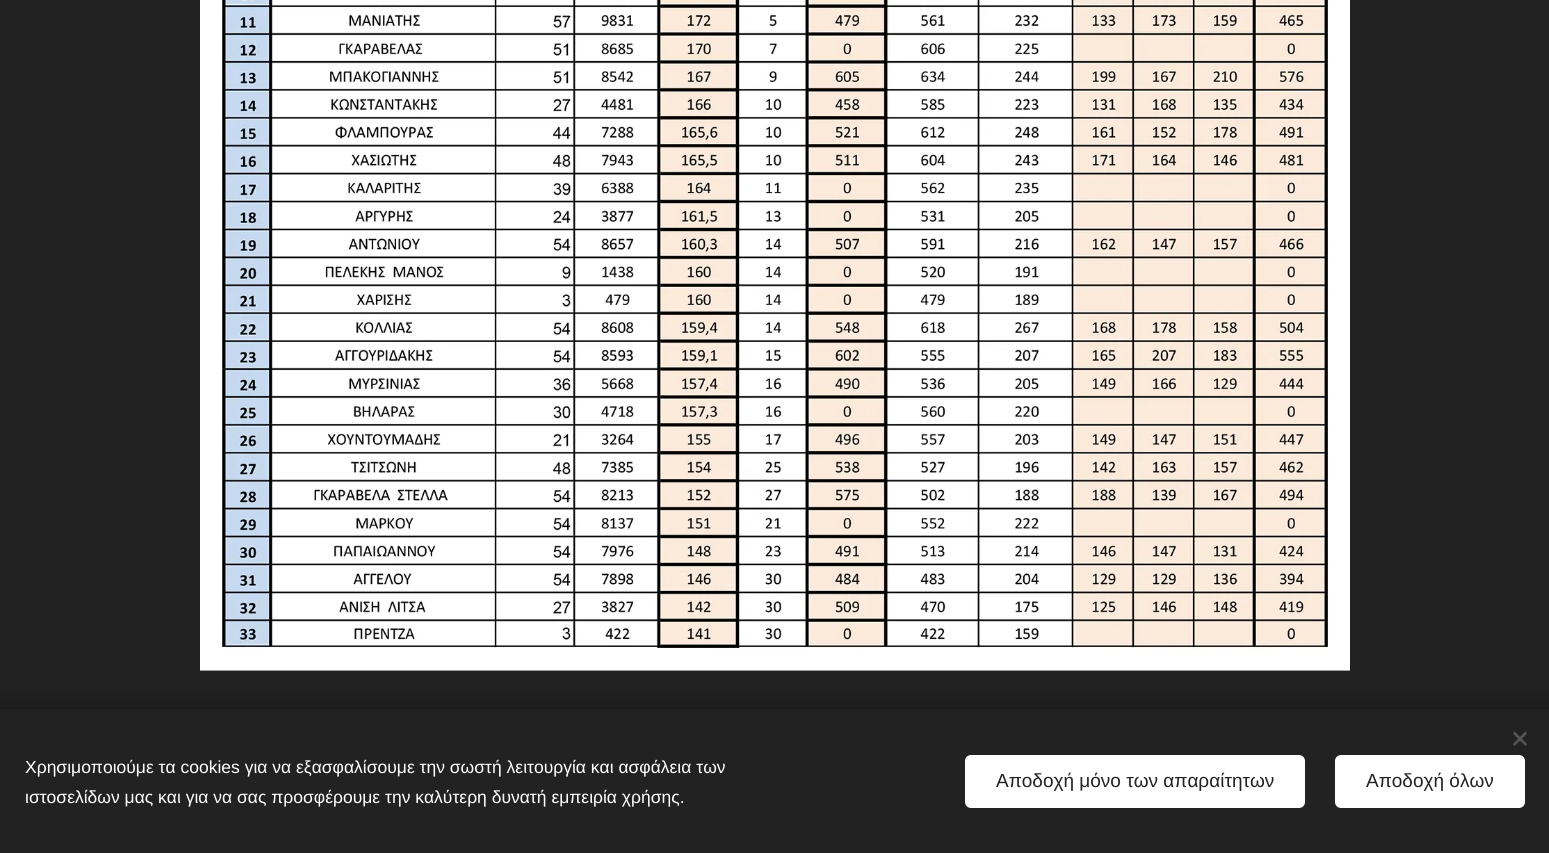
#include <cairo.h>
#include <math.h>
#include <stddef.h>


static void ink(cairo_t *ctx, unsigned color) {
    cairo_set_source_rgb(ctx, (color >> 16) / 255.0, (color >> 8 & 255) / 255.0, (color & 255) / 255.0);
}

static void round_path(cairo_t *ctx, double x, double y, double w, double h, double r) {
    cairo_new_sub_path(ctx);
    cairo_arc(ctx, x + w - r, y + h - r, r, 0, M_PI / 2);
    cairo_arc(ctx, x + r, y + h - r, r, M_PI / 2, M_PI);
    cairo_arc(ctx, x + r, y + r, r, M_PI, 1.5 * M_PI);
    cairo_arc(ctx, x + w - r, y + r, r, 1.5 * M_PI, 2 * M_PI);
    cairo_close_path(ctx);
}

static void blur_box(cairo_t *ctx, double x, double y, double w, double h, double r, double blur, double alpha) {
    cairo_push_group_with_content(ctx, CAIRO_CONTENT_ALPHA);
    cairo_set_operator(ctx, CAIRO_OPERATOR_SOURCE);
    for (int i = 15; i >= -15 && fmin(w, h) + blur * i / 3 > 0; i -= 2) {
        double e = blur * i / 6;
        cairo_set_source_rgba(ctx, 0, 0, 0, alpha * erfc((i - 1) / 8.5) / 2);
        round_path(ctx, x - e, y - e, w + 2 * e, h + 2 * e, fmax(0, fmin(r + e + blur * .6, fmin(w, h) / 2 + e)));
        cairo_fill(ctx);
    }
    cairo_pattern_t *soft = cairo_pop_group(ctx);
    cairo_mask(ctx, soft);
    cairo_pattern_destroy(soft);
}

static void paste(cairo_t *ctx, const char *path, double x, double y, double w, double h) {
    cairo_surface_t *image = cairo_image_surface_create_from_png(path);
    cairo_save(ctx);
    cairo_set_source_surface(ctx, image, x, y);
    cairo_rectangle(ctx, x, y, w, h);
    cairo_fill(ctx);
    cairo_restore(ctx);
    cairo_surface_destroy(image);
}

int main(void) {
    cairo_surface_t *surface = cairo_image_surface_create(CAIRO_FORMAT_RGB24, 1549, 853);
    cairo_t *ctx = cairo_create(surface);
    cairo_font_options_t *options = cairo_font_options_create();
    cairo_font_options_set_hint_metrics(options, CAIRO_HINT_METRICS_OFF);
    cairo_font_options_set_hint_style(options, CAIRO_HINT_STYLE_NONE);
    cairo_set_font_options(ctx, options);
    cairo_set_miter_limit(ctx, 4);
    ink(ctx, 0x222222);
    cairo_paint(ctx);
    paste(ctx, "media/1.png", 200, 0, 1150, 671);
    ink(ctx, 0x000000);
    blur_box(ctx, 0, 709, 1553, 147, 0, 15.5, 0.33);
    ink(ctx, 0x222222);
    cairo_rectangle(ctx, 0, 709, 1549, 144);
    cairo_fill(ctx);
    ink(ctx, 0x555555);
    cairo_new_path(ctx);
    cairo_move_to(ctx, 1513, 744);
    cairo_line_to(ctx, 1525.5, 731.5);
    cairo_line_to(ctx, 1527, 733.5);
    cairo_line_to(ctx, 1514.5, 746);
    cairo_close_path(ctx);
    cairo_fill(ctx);
    cairo_new_path(ctx);
    cairo_move_to(ctx, 1514.5, 731.5);
    cairo_line_to(ctx, 1527, 744);
    cairo_line_to(ctx, 1525.5, 746);
    cairo_line_to(ctx, 1513, 733.5);
    cairo_close_path(ctx);
    cairo_fill(ctx);
    cairo_select_font_face(ctx, "Liberation Sans", CAIRO_FONT_SLANT_NORMAL, CAIRO_FONT_WEIGHT_NORMAL);
    cairo_set_font_size(ctx, 17.5);
    ink(ctx, 0xFFFFFF);
    cairo_move_to(ctx, 25, 773);
    cairo_show_text(ctx, "Χρησιμοποιούμε τα cookies για να εξασφαλίσουμε την σωστή λειτουργία και ασφάλεια των");
    cairo_move_to(ctx, 25, 803);
    cairo_show_text(ctx, "ιστοσελίδων μας και για να σας προσφέρουμε την καλύτερη δυνατή εμπειρία χρήσης.");
    round_path(ctx, 965, 755, 340, 53, 6);
    cairo_fill(ctx);
    cairo_set_font_size(ctx, 19);
    ink(ctx, 0x222222);
    cairo_move_to(ctx, 996, 787);
    cairo_show_text(ctx, "Αποδοχή μόνο των απαραίτητων");
    ink(ctx, 0xFFFFFF);
    round_path(ctx, 1335, 755, 190, 53, 6);
    cairo_fill(ctx);
    ink(ctx, 0x222222);
    cairo_move_to(ctx, 1366, 787);
    cairo_show_text(ctx, "Αποδοχή όλων");
    cairo_surface_write_to_png(surface, "image.png");
    cairo_font_options_destroy(options);
    cairo_destroy(ctx);
    cairo_surface_destroy(surface);
    return 0;
}
